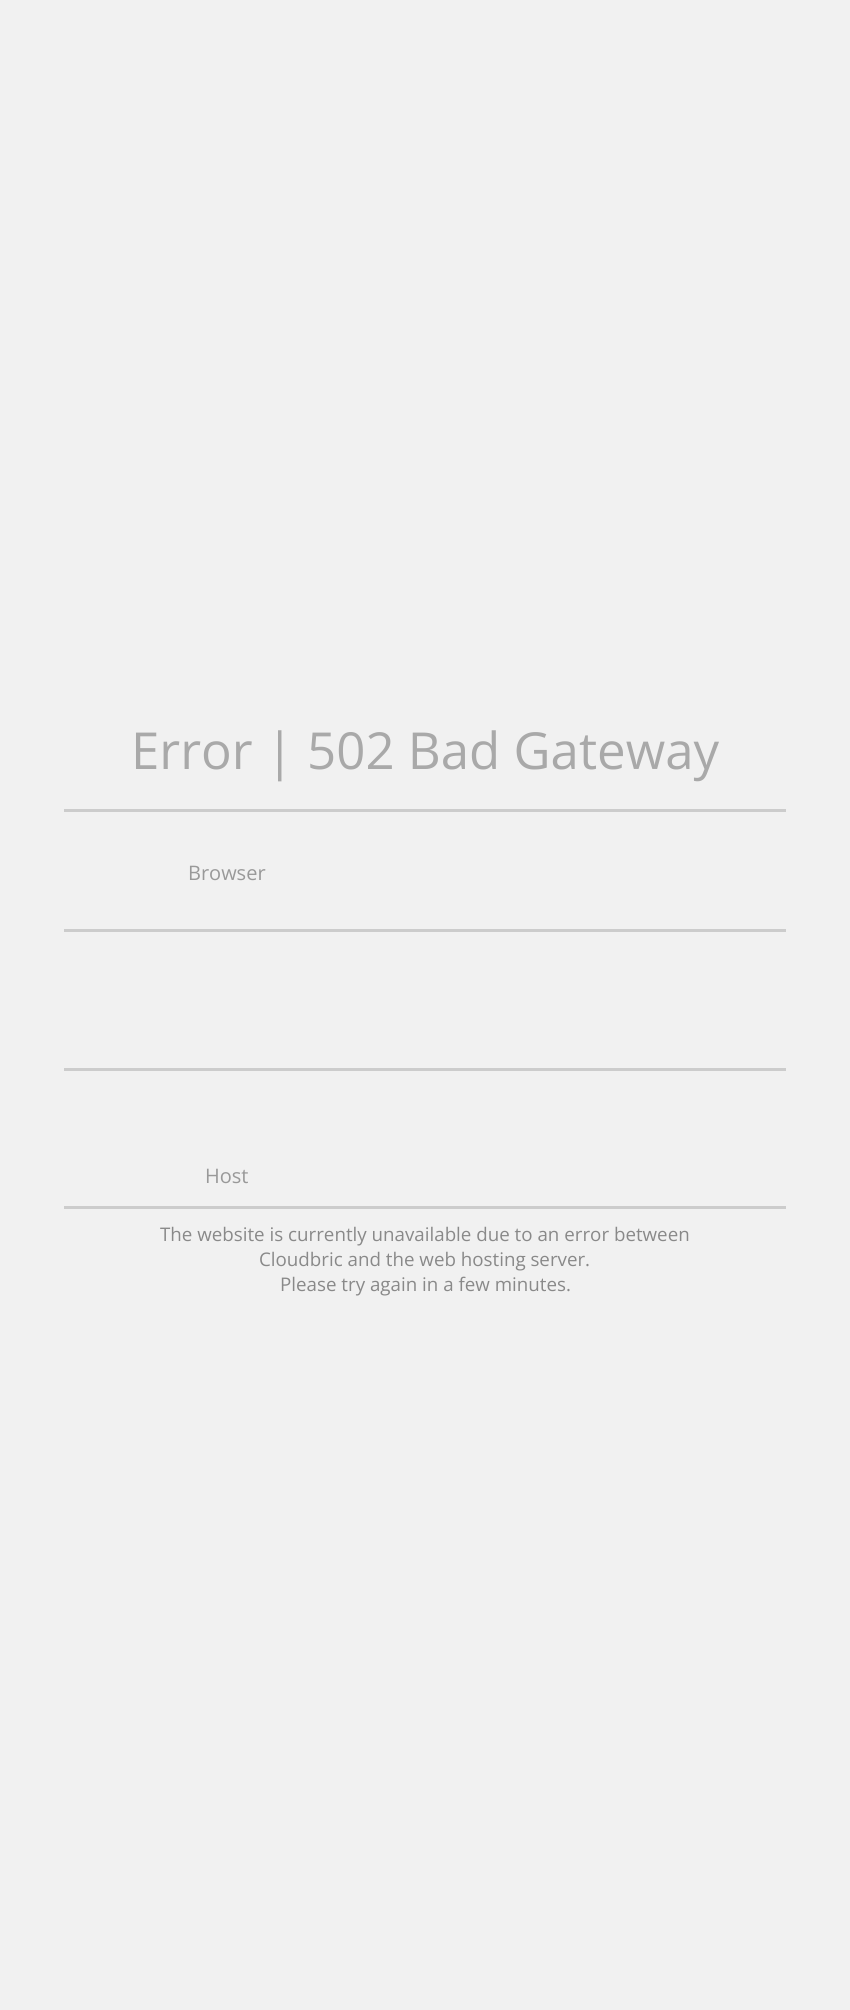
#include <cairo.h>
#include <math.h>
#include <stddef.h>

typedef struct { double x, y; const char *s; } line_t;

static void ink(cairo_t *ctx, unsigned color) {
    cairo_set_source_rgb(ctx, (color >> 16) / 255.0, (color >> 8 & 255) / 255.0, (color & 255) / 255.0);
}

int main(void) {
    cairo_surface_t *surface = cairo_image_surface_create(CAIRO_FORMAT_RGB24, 850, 2010);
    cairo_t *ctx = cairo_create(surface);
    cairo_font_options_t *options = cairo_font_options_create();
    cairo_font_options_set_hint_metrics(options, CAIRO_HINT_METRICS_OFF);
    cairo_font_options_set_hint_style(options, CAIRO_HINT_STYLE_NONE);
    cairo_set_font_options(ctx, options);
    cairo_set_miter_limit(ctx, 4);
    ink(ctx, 0xF1F1F1);
    cairo_paint(ctx);
    cairo_select_font_face(ctx, "Open Sans", CAIRO_FONT_SLANT_NORMAL, CAIRO_FONT_WEIGHT_NORMAL);
    cairo_set_font_size(ctx, 51);
    ink(ctx, 0xA9A9A9);
    cairo_move_to(ctx, 131, 769);
    cairo_show_text(ctx, "Error | 502 Bad Gateway");
    ink(ctx, 0xCCCCCC);
    cairo_rectangle(ctx, 64, 809, 722, 3);
    cairo_fill(ctx);
    cairo_rectangle(ctx, 64, 929, 722, 3);
    cairo_fill(ctx);
    cairo_set_font_size(ctx, 20);
    ink(ctx, 0x999999);
    cairo_move_to(ctx, 188, 880);
    cairo_show_text(ctx, "Browser");
    ink(ctx, 0xCCCCCC);
    cairo_rectangle(ctx, 64, 1068, 722, 3);
    cairo_fill(ctx);
    cairo_rectangle(ctx, 64, 1206, 722, 3);
    cairo_fill(ctx);
    ink(ctx, 0x999999);
    cairo_move_to(ctx, 205, 1183);
    cairo_show_text(ctx, "Host");
    cairo_set_font_size(ctx, 18.75);
    ink(ctx, 0x898989);
    {
        static const line_t items[] = {
            {160, 1241, "The website is currently unavailable due to an error between"},
            {259, 1266, "Cloudbric and the web hosting server."},
            {280, 1291, "Please try again in a few minutes."},
        };
        for (size_t i = 0; i < sizeof items / sizeof *items; i++) {
            cairo_move_to(ctx, items[i].x, items[i].y);
            cairo_show_text(ctx, items[i].s);
        }
    }
    cairo_surface_write_to_png(surface, "image.png");
    cairo_font_options_destroy(options);
    cairo_destroy(ctx);
    cairo_surface_destroy(surface);
    return 0;
}
